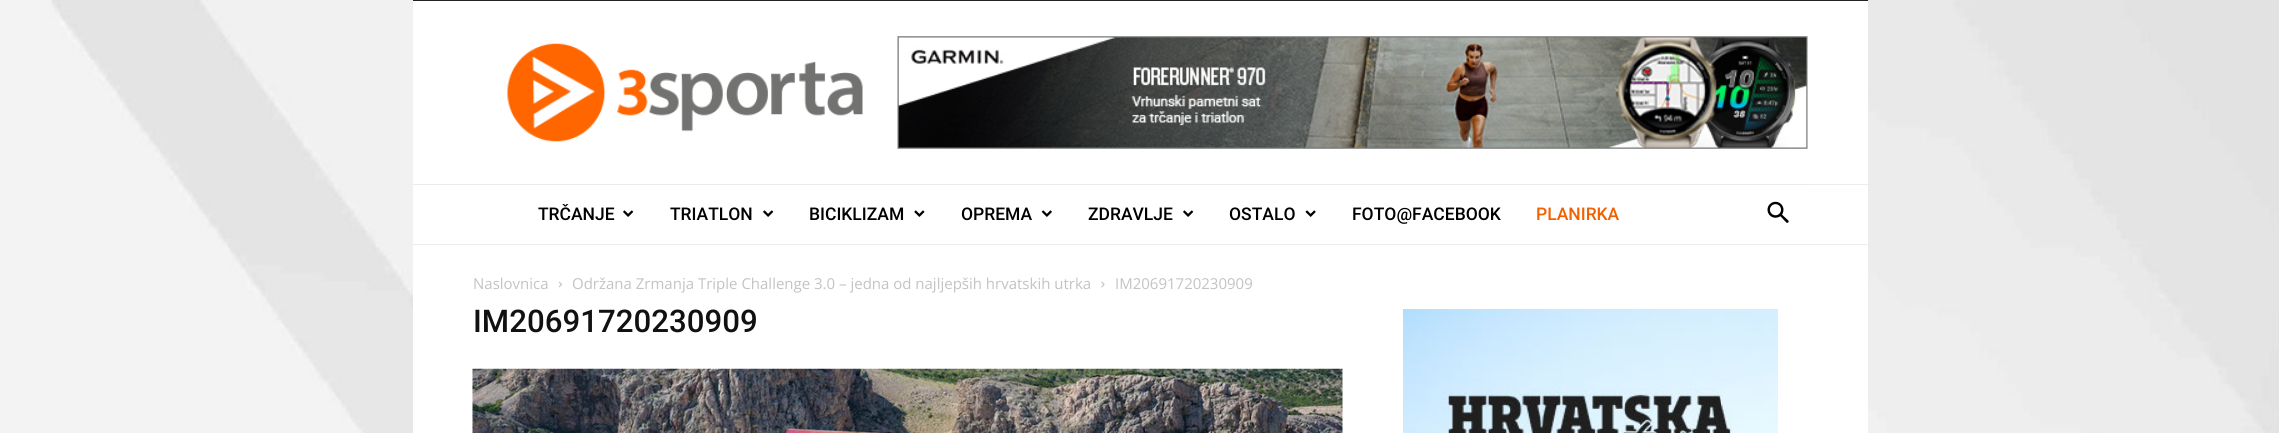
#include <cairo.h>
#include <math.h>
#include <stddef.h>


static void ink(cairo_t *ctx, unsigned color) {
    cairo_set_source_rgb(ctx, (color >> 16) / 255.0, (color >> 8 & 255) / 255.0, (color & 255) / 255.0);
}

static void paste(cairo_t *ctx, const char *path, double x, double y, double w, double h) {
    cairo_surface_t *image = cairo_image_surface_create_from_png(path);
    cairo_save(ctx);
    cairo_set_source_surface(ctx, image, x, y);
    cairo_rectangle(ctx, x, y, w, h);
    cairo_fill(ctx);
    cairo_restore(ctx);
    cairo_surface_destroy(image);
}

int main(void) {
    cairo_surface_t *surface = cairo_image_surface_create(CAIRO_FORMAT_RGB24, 2279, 433);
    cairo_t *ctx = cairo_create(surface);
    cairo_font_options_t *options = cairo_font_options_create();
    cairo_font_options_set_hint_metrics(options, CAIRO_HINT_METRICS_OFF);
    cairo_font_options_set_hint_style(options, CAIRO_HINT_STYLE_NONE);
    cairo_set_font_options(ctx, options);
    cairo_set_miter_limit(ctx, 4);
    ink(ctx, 0xFFFFFF);
    cairo_paint(ctx);
    paste(ctx, "media/1.png", 0, 0, 2279, 433);
    ink(ctx, 0x222222);
    cairo_rectangle(ctx, 413, 0, 1455, 1);
    cairo_fill(ctx);
    ink(ctx, 0xFFFFFF);
    cairo_rectangle(ctx, 413, 1, 1455, 183);
    cairo_fill(ctx);
    paste(ctx, "media/2.png", 507, 43, 356, 99);
    paste(ctx, "media/3.png", 897, 36, 911, 113);
    cairo_rectangle(ctx, 413, 185, 1455, 59);
    cairo_fill(ctx);
    ink(ctx, 0xEBEBEB);
    cairo_rectangle(ctx, 413, 184, 1396, 1);
    cairo_fill(ctx);
    cairo_select_font_face(ctx, "Roboto Medium", CAIRO_FONT_SLANT_NORMAL, CAIRO_FONT_WEIGHT_NORMAL);
    cairo_set_font_size(ctx, 17.5);
    ink(ctx, 0x000000);
    cairo_move_to(ctx, 538, 220);
    cairo_show_text(ctx, "TRČANJE");
    paste(ctx, "media/4.png", 623, 210, 11, 7);
    cairo_move_to(ctx, 670, 220);
    cairo_show_text(ctx, "TRIATLON");
    paste(ctx, "media/4.png", 763, 210, 11, 7);
    cairo_move_to(ctx, 809, 220);
    cairo_show_text(ctx, "BICIKLIZAM");
    paste(ctx, "media/5.png", 914, 210, 11, 7);
    cairo_move_to(ctx, 961, 220);
    cairo_show_text(ctx, "OPREMA");
    paste(ctx, "media/6.png", 1041, 210, 11, 7);
    cairo_move_to(ctx, 1088, 220);
    cairo_show_text(ctx, "ZDRAVLJE");
    paste(ctx, "media/4.png", 1183, 210, 11, 7);
    cairo_move_to(ctx, 1229, 220);
    cairo_show_text(ctx, "OSTALO");
    paste(ctx, "media/7.png", 1305, 210, 11, 7);
    cairo_move_to(ctx, 1352, 220);
    cairo_show_text(ctx, "FOTO@FACEBOOK");
    ink(ctx, 0xF26100);
    cairo_move_to(ctx, 1536, 220);
    cairo_show_text(ctx, "PLANIRKA");
    paste(ctx, "media/8.png", 1767, 201, 22, 22);
    ink(ctx, 0xEBEBEB);
    cairo_rectangle(ctx, 413, 244, 1436, 1);
    cairo_fill(ctx);
    ink(ctx, 0xFFFFFF);
    cairo_rectangle(ctx, 413, 245, 1455, 188);
    cairo_fill(ctx);
    cairo_select_font_face(ctx, "Open Sans", CAIRO_FONT_SLANT_NORMAL, CAIRO_FONT_WEIGHT_NORMAL);
    cairo_set_font_size(ctx, 15);
    ink(ctx, 0xC3C3C3);
    cairo_move_to(ctx, 473, 289);
    cairo_show_text(ctx, "Naslovnica");
    paste(ctx, "media/9.png", 558, 281, 4, 7);
    cairo_move_to(ctx, 572, 289);
    cairo_show_text(ctx, "Održana Zrmanja Triple Challenge 3.0 – jedna od najljepših hrvatskih utrka");
    paste(ctx, "media/10.png", 1101, 281, 4, 7);
    cairo_move_to(ctx, 1115, 289);
    cairo_show_text(ctx, "IM20691720230909");
    cairo_select_font_face(ctx, "Roboto Medium", CAIRO_FONT_SLANT_NORMAL, CAIRO_FONT_WEIGHT_NORMAL);
    cairo_set_font_size(ctx, 31.25);
    ink(ctx, 0x111111);
    cairo_move_to(ctx, 473, 332);
    cairo_show_text(ctx, "IM20691720230909");
    paste(ctx, "media/11.png", 472, 368, 871, 65);
    paste(ctx, "media/12.png", 1403, 309, 375, 124);
    cairo_surface_write_to_png(surface, "image.png");
    cairo_font_options_destroy(options);
    cairo_destroy(ctx);
    cairo_surface_destroy(surface);
    return 0;
}
